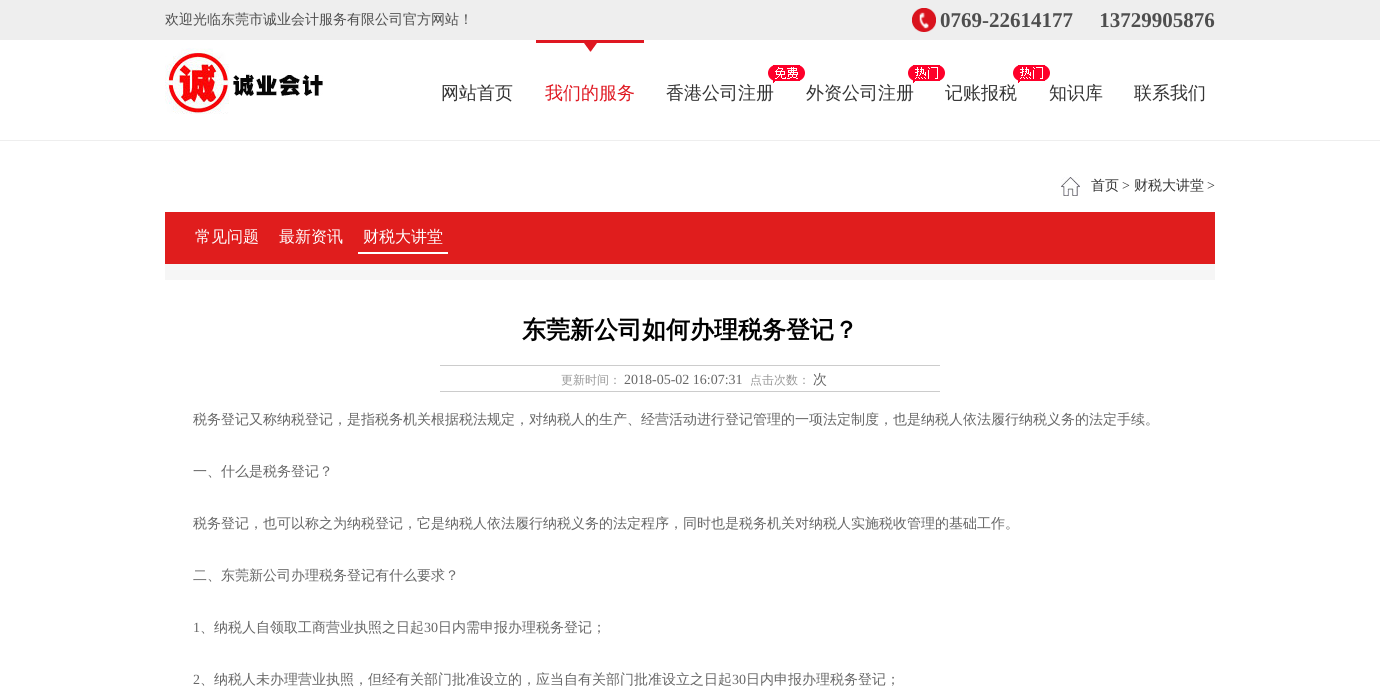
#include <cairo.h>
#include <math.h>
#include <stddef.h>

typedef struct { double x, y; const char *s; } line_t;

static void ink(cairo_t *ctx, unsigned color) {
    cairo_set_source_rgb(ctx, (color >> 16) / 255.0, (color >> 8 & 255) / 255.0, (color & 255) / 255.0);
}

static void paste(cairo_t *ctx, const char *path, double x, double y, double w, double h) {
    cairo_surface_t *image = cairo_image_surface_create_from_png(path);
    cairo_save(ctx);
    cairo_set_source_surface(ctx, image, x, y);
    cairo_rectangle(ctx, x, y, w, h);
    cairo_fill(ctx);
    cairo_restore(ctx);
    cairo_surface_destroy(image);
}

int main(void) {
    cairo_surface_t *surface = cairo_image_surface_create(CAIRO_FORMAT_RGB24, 1380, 690);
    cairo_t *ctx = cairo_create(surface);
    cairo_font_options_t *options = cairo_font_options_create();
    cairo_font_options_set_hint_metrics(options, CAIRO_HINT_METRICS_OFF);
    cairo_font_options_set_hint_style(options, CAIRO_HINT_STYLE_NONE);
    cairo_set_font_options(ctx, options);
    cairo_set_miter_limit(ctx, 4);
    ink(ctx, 0xFFFFFF);
    cairo_paint(ctx);
    ink(ctx, 0xEEEEEE);
    cairo_rectangle(ctx, 0, 0, 1380, 40);
    cairo_fill(ctx);
    cairo_select_font_face(ctx, "WenQuanYi Zen Hei Medium", CAIRO_FONT_SLANT_NORMAL, CAIRO_FONT_WEIGHT_NORMAL);
    cairo_set_font_size(ctx, 14);
    ink(ctx, 0x4E4E4E);
    cairo_move_to(ctx, 165, 24);
    cairo_show_text(ctx, "欢迎光临东莞市诚业会计服务有限公司官方网站！");
    paste(ctx, "media/1.png", 912, 8, 24, 24);
    cairo_select_font_face(ctx, "Liberation Serif", CAIRO_FONT_SLANT_NORMAL, CAIRO_FONT_WEIGHT_BOLD);
    cairo_set_font_size(ctx, 21);
    cairo_move_to(ctx, 940, 27);
    cairo_show_text(ctx, "0769-22614177     13729905876");
    ink(ctx, 0xEEEEEE);
    cairo_rectangle(ctx, 0, 140, 1380, 1);
    cairo_fill(ctx);
    paste(ctx, "media/2.png", 165, 48, 158, 66);
    paste(ctx, "media/3.png", 768, 65, 37, 18);
    paste(ctx, "media/4.png", 908, 65, 37, 18);
    paste(ctx, "media/4.png", 1013, 65, 37, 18);
    cairo_select_font_face(ctx, "WenQuanYi Zen Hei Medium", CAIRO_FONT_SLANT_NORMAL, CAIRO_FONT_WEIGHT_NORMAL);
    cairo_set_font_size(ctx, 18);
    ink(ctx, 0x333333);
    cairo_move_to(ctx, 441, 99);
    cairo_show_text(ctx, "网站首页");
    ink(ctx, 0xDF1721);
    cairo_rectangle(ctx, 536, 40, 108, 3);
    cairo_fill(ctx);
    paste(ctx, "media/5.png", 584, 43, 13, 9);
    cairo_move_to(ctx, 545, 99);
    cairo_show_text(ctx, "我们的服务");
    ink(ctx, 0x333333);
    {
        static const line_t items[] = {
            {666, 99, "香港公司注册"},
            {806, 99, "外资公司注册"},
            {945, 99, "记账报税"},
            {1049, 99, "知识库"},
            {1134, 99, "联系我们"},
        };
        for (size_t i = 0; i < sizeof items / sizeof *items; i++) {
            cairo_move_to(ctx, items[i].x, items[i].y);
            cairo_show_text(ctx, items[i].s);
        }
    }
    paste(ctx, "media/6.png", 1061, 177, 19, 19);
    cairo_set_font_size(ctx, 14);
    cairo_move_to(ctx, 1091, 190);
    cairo_show_text(ctx, "首页");
    cairo_select_font_face(ctx, "Liberation Serif", CAIRO_FONT_SLANT_NORMAL, CAIRO_FONT_WEIGHT_NORMAL);
    cairo_move_to(ctx, 1122, 190);
    cairo_show_text(ctx, ">");
    cairo_select_font_face(ctx, "WenQuanYi Zen Hei Medium", CAIRO_FONT_SLANT_NORMAL, CAIRO_FONT_WEIGHT_NORMAL);
    cairo_move_to(ctx, 1134, 190);
    cairo_show_text(ctx, "财税大讲堂");
    cairo_select_font_face(ctx, "Liberation Serif", CAIRO_FONT_SLANT_NORMAL, CAIRO_FONT_WEIGHT_NORMAL);
    cairo_move_to(ctx, 1207, 190);
    cairo_show_text(ctx, ">");
    ink(ctx, 0xE01D1D);
    cairo_rectangle(ctx, 165, 212, 1050, 52);
    cairo_fill(ctx);
    cairo_select_font_face(ctx, "WenQuanYi Zen Hei Medium", CAIRO_FONT_SLANT_NORMAL, CAIRO_FONT_WEIGHT_NORMAL);
    cairo_set_font_size(ctx, 16);
    ink(ctx, 0xFFFFFF);
    cairo_move_to(ctx, 195, 242);
    cairo_show_text(ctx, "常见问题");
    cairo_move_to(ctx, 279, 242);
    cairo_show_text(ctx, "最新资讯");
    cairo_rectangle(ctx, 358, 252, 90, 2);
    cairo_fill(ctx);
    cairo_move_to(ctx, 363, 242);
    cairo_show_text(ctx, "财税大讲堂");
    ink(ctx, 0xF6F6F6);
    cairo_rectangle(ctx, 165, 264, 1050, 16);
    cairo_fill(ctx);
    cairo_select_font_face(ctx, "WenQuanYi Zen Hei", CAIRO_FONT_SLANT_NORMAL, CAIRO_FONT_WEIGHT_BOLD);
    cairo_set_font_size(ctx, 24);
    ink(ctx, 0x000000);
    cairo_move_to(ctx, 522, 338);
    cairo_show_text(ctx, "东莞新公司如何办理税务登记？");
    ink(ctx, 0xCCCCCC);
    cairo_rectangle(ctx, 440, 365, 500, 1);
    cairo_fill(ctx);
    cairo_rectangle(ctx, 440, 391, 500, 1);
    cairo_fill(ctx);
    cairo_select_font_face(ctx, "WenQuanYi Zen Hei Medium", CAIRO_FONT_SLANT_NORMAL, CAIRO_FONT_WEIGHT_NORMAL);
    cairo_set_font_size(ctx, 12);
    ink(ctx, 0x999999);
    cairo_move_to(ctx, 561, 384);
    cairo_show_text(ctx, "更新时间：");
    cairo_select_font_face(ctx, "Liberation Serif", CAIRO_FONT_SLANT_NORMAL, CAIRO_FONT_WEIGHT_NORMAL);
    cairo_set_font_size(ctx, 14);
    ink(ctx, 0x666666);
    cairo_move_to(ctx, 624, 384);
    cairo_show_text(ctx, "2018-05-02 16:07:31");
    cairo_select_font_face(ctx, "WenQuanYi Zen Hei Medium", CAIRO_FONT_SLANT_NORMAL, CAIRO_FONT_WEIGHT_NORMAL);
    cairo_set_font_size(ctx, 12);
    ink(ctx, 0x999999);
    cairo_move_to(ctx, 750, 384);
    cairo_show_text(ctx, "点击次数：");
    cairo_set_font_size(ctx, 14);
    ink(ctx, 0x666666);
    {
        static const line_t items[] = {
            {813, 384, "次"},
            {193, 424, "税务登记又称纳税登记，是指税务机关根据税法规定，对纳税人的生产、经营活动进行登记管理的一项法定制度，也是纳税人依法履行纳税义务的法定手续。"},
            {193, 476, "一、什么是税务登记？"},
            {193, 528, "税务登记，也可以称之为纳税登记，它是纳税人依法履行纳税义务的法定程序，同时也是税务机关对纳税人实施税收管理的基础工作。"},
            {193, 580, "二、东莞新公司办理税务登记有什么要求？"},
        };
        for (size_t i = 0; i < sizeof items / sizeof *items; i++) {
            cairo_move_to(ctx, items[i].x, items[i].y);
            cairo_show_text(ctx, items[i].s);
        }
    }
    cairo_select_font_face(ctx, "Liberation Serif", CAIRO_FONT_SLANT_NORMAL, CAIRO_FONT_WEIGHT_NORMAL);
    cairo_move_to(ctx, 193, 632);
    cairo_show_text(ctx, "1");
    cairo_select_font_face(ctx, "WenQuanYi Zen Hei Medium", CAIRO_FONT_SLANT_NORMAL, CAIRO_FONT_WEIGHT_NORMAL);
    cairo_move_to(ctx, 200, 632);
    cairo_show_text(ctx, "、纳税人自领取工商营业执照之日起");
    cairo_select_font_face(ctx, "Liberation Serif", CAIRO_FONT_SLANT_NORMAL, CAIRO_FONT_WEIGHT_NORMAL);
    cairo_move_to(ctx, 424, 632);
    cairo_show_text(ctx, "30");
    cairo_select_font_face(ctx, "WenQuanYi Zen Hei Medium", CAIRO_FONT_SLANT_NORMAL, CAIRO_FONT_WEIGHT_NORMAL);
    cairo_move_to(ctx, 438, 632);
    cairo_show_text(ctx, "日内需申报办理税务登记；");
    cairo_select_font_face(ctx, "Liberation Serif", CAIRO_FONT_SLANT_NORMAL, CAIRO_FONT_WEIGHT_NORMAL);
    cairo_move_to(ctx, 193, 684);
    cairo_show_text(ctx, "2");
    cairo_select_font_face(ctx, "WenQuanYi Zen Hei Medium", CAIRO_FONT_SLANT_NORMAL, CAIRO_FONT_WEIGHT_NORMAL);
    cairo_move_to(ctx, 200, 684);
    cairo_show_text(ctx, "、纳税人未办理营业执照，但经有关部门批准设立的，应当自有关部门批准设立之日起");
    cairo_select_font_face(ctx, "Liberation Serif", CAIRO_FONT_SLANT_NORMAL, CAIRO_FONT_WEIGHT_NORMAL);
    cairo_move_to(ctx, 732, 684);
    cairo_show_text(ctx, "30");
    cairo_select_font_face(ctx, "WenQuanYi Zen Hei Medium", CAIRO_FONT_SLANT_NORMAL, CAIRO_FONT_WEIGHT_NORMAL);
    cairo_move_to(ctx, 746, 684);
    cairo_show_text(ctx, "日内申报办理税务登记；");
    cairo_surface_write_to_png(surface, "image.png");
    cairo_font_options_destroy(options);
    cairo_destroy(ctx);
    cairo_surface_destroy(surface);
    return 0;
}
